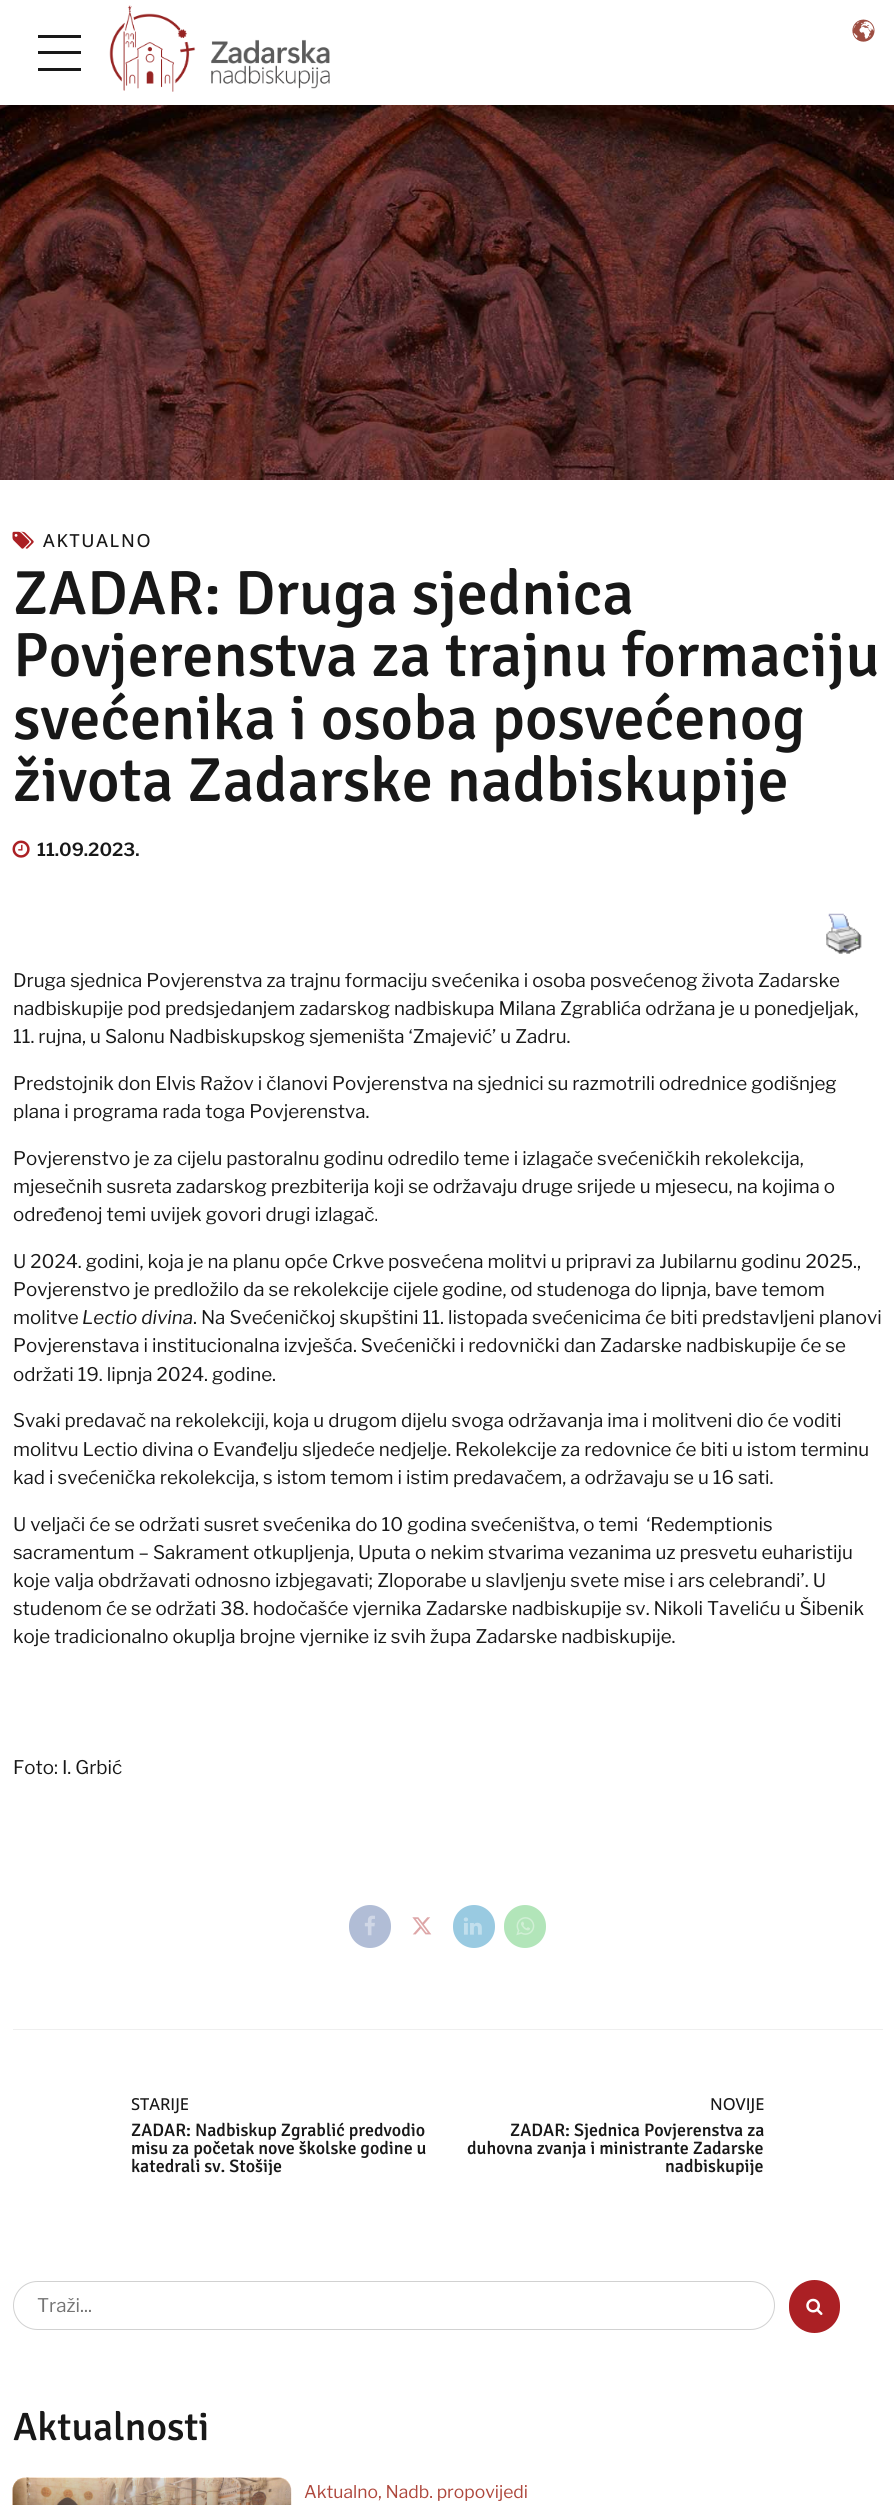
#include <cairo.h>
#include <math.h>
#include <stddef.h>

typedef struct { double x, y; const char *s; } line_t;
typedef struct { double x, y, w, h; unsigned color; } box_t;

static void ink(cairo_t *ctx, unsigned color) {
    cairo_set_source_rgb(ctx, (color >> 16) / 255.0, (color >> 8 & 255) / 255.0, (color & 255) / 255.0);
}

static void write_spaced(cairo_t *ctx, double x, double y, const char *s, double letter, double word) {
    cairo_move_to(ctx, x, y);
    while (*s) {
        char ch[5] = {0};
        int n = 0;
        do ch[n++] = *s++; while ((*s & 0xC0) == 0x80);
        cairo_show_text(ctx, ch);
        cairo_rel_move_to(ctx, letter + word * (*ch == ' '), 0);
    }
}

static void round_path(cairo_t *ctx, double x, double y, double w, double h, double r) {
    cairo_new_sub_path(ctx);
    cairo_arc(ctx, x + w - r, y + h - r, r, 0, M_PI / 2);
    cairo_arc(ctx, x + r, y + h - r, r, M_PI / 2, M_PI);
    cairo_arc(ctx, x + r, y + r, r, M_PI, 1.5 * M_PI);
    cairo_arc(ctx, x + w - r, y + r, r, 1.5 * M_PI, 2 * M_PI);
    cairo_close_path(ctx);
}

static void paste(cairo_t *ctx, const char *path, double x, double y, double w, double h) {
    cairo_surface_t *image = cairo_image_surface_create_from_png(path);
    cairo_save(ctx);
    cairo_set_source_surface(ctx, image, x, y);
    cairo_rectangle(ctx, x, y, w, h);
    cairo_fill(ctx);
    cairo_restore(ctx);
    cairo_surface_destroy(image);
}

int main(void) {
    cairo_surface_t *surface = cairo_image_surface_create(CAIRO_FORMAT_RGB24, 894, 2505);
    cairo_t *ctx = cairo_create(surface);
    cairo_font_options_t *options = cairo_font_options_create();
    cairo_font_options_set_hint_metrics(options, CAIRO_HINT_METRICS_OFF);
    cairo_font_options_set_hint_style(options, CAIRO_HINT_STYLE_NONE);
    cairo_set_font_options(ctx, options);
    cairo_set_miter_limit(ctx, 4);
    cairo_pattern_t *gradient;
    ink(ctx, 0xFFFFFF);
    cairo_paint(ctx);
    paste(ctx, "media/1.png", 852, 19, 23, 23);
    {
        static const box_t items[] = {
            {38, 35, 43, 3, 0x181818},
            {38, 51, 43, 3, 0x181818},
            {38, 68, 43, 3, 0x181818},
        };
        for (size_t i = 0; i < sizeof items / sizeof *items; i++) {
            ink(ctx, items[i].color);
            cairo_rectangle(ctx, items[i].x, items[i].y, items[i].w, items[i].h);
            cairo_fill(ctx);
        }
    }
    paste(ctx, "media/2.png", 109, 5, 221, 87);
    paste(ctx, "media/3.png", 0, 105, 894, 375);
    paste(ctx, "media/4.png", 12, 531, 22, 18);
    cairo_select_font_face(ctx, "Open Sans Medium", CAIRO_FONT_SLANT_NORMAL, CAIRO_FONT_WEIGHT_NORMAL);
    cairo_set_font_size(ctx, 18);
    write_spaced(ctx, 43, 547, "AKTUALNO", 1.75, 0);
    cairo_select_font_face(ctx, "Signika Medium", CAIRO_FONT_SLANT_NORMAL, CAIRO_FONT_WEIGHT_NORMAL);
    cairo_set_font_size(ctx, 62.5);
    {
        static const line_t items[] = {
            {13, 614, "ZADAR: Druga sjednica"},
            {13, 676, "Povjerenstva za trajnu formaciju"},
            {13, 739, "svećenika i osoba posvećenog"},
            {13, 801, "života Zadarske nadbiskupije"},
        };
        for (size_t i = 0; i < sizeof items / sizeof *items; i++) {
            cairo_move_to(ctx, items[i].x, items[i].y);
            cairo_show_text(ctx, items[i].s);
        }
    }
    paste(ctx, "media/5.png", 12, 840, 18, 18);
    cairo_select_font_face(ctx, "Libre Franklin SemiBold", CAIRO_FONT_SLANT_NORMAL, CAIRO_FONT_WEIGHT_NORMAL);
    cairo_set_font_size(ctx, 18);
    cairo_move_to(ctx, 37, 856);
    cairo_show_text(ctx, "11.09.2023.");
    paste(ctx, "media/6.png", 826, 913, 36, 41);
    cairo_select_font_face(ctx, "Libre Franklin", CAIRO_FONT_SLANT_NORMAL, CAIRO_FONT_WEIGHT_NORMAL);
    cairo_set_font_size(ctx, 18.75);
    {
        static const line_t items[] = {
            {13, 987, "Druga sjednica Povjerenstva za trajnu formaciju svećenika i osoba posvećenog života Zadarske"},
            {13, 1015, "nadbiskupije pod predsjedanjem zadarskog nadbiskupa Milana Zgrablića održana je u ponedjeljak,"},
            {13, 1043, "11. rujna, u Salonu Nadbiskupskog sjemeništa ‘Zmajević’ u Zadru."},
            {13, 1090, "Predstojnik don Elvis Ražov i članovi Povjerenstva na sjednici su razmotrili odrednice godišnjeg"},
            {13, 1118, "plana i programa rada toga Povjerenstva."},
            {13, 1165, "Povjerenstvo je za cijelu pastoralnu godinu odredilo teme i izlagače svećeničkih rekolekcija,"},
            {13, 1193, "mjesečnih susreta zadarskog prezbiterija koji se održavaju druge srijede u mjesecu, na kojima o"},
            {13, 1221, "određenoj temi uvijek govori drugi izlagač."},
            {13, 1268, "U 2024. godini, koja je na planu opće Crkve posvećena molitvi u pripravi za Jubilarnu godinu 2025.,"},
            {13, 1296, "Povjerenstvo je predložilo da se rekolekcije cijele godine, od studenoga do lipnja, bave temom"},
            {13, 1324, "molitve"},
        };
        for (size_t i = 0; i < sizeof items / sizeof *items; i++) {
            cairo_move_to(ctx, items[i].x, items[i].y);
            cairo_show_text(ctx, items[i].s);
        }
    }
    cairo_select_font_face(ctx, "Libre Franklin", CAIRO_FONT_SLANT_ITALIC, CAIRO_FONT_WEIGHT_NORMAL);
    cairo_move_to(ctx, 82, 1324);
    cairo_show_text(ctx, "Lectio divina");
    cairo_select_font_face(ctx, "Libre Franklin", CAIRO_FONT_SLANT_NORMAL, CAIRO_FONT_WEIGHT_NORMAL);
    {
        static const line_t items[] = {
            {193, 1324, ". Na Svećeničkoj skupštini 11. listopada svećenicima će biti predstavljeni planovi"},
            {13, 1352, "Povjerenstava i institucionalna izvješća. Svećenički i redovnički dan Zadarske nadbiskupije će se"},
            {13, 1381, "održati 19. lipnja 2024. godine."},
            {13, 1427, "Svaki predavač na rekolekciji, koja u drugom dijelu svoga održavanja ima i molitveni dio će voditi"},
            {13, 1456, "molitvu Lectio divina o Evanđelju sljedeće nedjelje. Rekolekcije za redovnice će biti u istom terminu"},
            {13, 1484, "kad i svećenička rekolekcija, s istom temom i istim predavačem, a održavaju se u 16 sati."},
            {13, 1531, "U veljači će se održati susret svećenika do 10 godina svećeništva, o temi  ‘Redemptionis"},
            {13, 1559, "sacramentum – Sakrament otkupljenja, Uputa o nekim stvarima vezanima uz presvetu euharistiju"},
            {13, 1587, "koje valja obdržavati odnosno izbjegavati; Zloporabe u slavljenju svete mise i ars celebrandi’. U"},
            {13, 1615, "studenom će se održati 38. hodočašće vjernika Zadarske nadbiskupije sv. Nikoli Taveliću u Šibenik"},
            {13, 1643, "koje tradicionalno okuplja brojne vjernike iz svih župa Zadarske nadbiskupije."},
            {13, 1774, "Foto: I. Grbić"},
        };
        for (size_t i = 0; i < sizeof items / sizeof *items; i++) {
            cairo_move_to(ctx, items[i].x, items[i].y);
            cairo_show_text(ctx, items[i].s);
        }
    }
    ink(ctx, 0xB1BDD6);
    round_path(ctx, 349, 1905, 42, 43, 21);
    cairo_fill(ctx);
    paste(ctx, "media/7.png", 364, 1915, 11, 21);
    paste(ctx, "media/8.png", 412, 1917, 20, 18);
    ink(ctx, 0x99CAE1);
    round_path(ctx, 453, 1905, 42, 43, 21);
    cairo_fill(ctx);
    paste(ctx, "media/9.png", 463, 1917, 19, 18);
    ink(ctx, 0xB2E5B9);
    round_path(ctx, 504, 1905, 42, 43, 21);
    cairo_fill(ctx);
    paste(ctx, "media/10.png", 516, 1917, 19, 19);
    ink(ctx, 0xEFEFEF);
    cairo_rectangle(ctx, 13, 2029, 870, 1);
    cairo_fill(ctx);
    cairo_select_font_face(ctx, "Open Sans Medium", CAIRO_FONT_SLANT_NORMAL, CAIRO_FONT_WEIGHT_NORMAL);
    cairo_set_font_size(ctx, 16.5);
    ink(ctx, 0x181818);
    cairo_move_to(ctx, 131, 2110);
    cairo_show_text(ctx, "STARIJE");
    cairo_select_font_face(ctx, "Signika Medium", CAIRO_FONT_SLANT_NORMAL, CAIRO_FONT_WEIGHT_NORMAL);
    cairo_set_font_size(ctx, 18);
    cairo_move_to(ctx, 131, 2136);
    cairo_show_text(ctx, "ZADAR: Nadbiskup Zgrablić predvodio");
    cairo_move_to(ctx, 131, 2154);
    cairo_show_text(ctx, "misu za početak nove školske godine u");
    cairo_save(ctx);
    cairo_rectangle(ctx, 131, 2121, 317, 54);
    cairo_clip(ctx);
    cairo_move_to(ctx, 131, 2172);
    cairo_show_text(ctx, "katedrali sv. Stošije");
    cairo_restore(ctx);
    cairo_select_font_face(ctx, "Open Sans Medium", CAIRO_FONT_SLANT_NORMAL, CAIRO_FONT_WEIGHT_NORMAL);
    cairo_set_font_size(ctx, 16.5);
    cairo_move_to(ctx, 710, 2110);
    cairo_show_text(ctx, "NOVIJE");
    cairo_select_font_face(ctx, "Signika Medium", CAIRO_FONT_SLANT_NORMAL, CAIRO_FONT_WEIGHT_NORMAL);
    cairo_set_font_size(ctx, 18);
    cairo_move_to(ctx, 510, 2136);
    cairo_show_text(ctx, "ZADAR: Sjednica Povjerenstva za");
    cairo_move_to(ctx, 467, 2154);
    cairo_show_text(ctx, "duhovna zvanja i ministrante Zadarske");
    cairo_save(ctx);
    cairo_rectangle(ctx, 448, 2121, 316, 54);
    cairo_clip(ctx);
    cairo_move_to(ctx, 665, 2172);
    cairo_show_text(ctx, "nadbiskupije");
    cairo_restore(ctx);
    round_path(ctx, 13.5, 2281.5, 761, 48, 24);
    ink(ctx, 0xD1D1D1);
    cairo_set_line_width(ctx, 1);
    cairo_stroke(ctx);
    cairo_select_font_face(ctx, "Libre Franklin", CAIRO_FONT_SLANT_NORMAL, CAIRO_FONT_WEIGHT_NORMAL);
    cairo_set_font_size(ctx, 18.75);
    ink(ctx, 0x757575);
    cairo_move_to(ctx, 37, 2312);
    cairo_show_text(ctx, "Traži...");
    ink(ctx, 0xAB2024);
    round_path(ctx, 789, 2280, 51, 53, 25.5);
    cairo_fill(ctx);
    paste(ctx, "media/11.png", 806, 2298, 17, 17);
    cairo_select_font_face(ctx, "Signika Medium", CAIRO_FONT_SLANT_NORMAL, CAIRO_FONT_WEIGHT_NORMAL);
    cairo_set_font_size(ctx, 39.5);
    ink(ctx, 0x181818);
    cairo_move_to(ctx, 13, 2440);
    cairo_show_text(ctx, "Aktualnosti");
    paste(ctx, "media/12.png", 12, 2477, 280, 28);
    gradient = cairo_pattern_create_linear(152, 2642, 152, 2470);
    cairo_pattern_add_color_stop_rgba(gradient, 0, 0, 0, 0, 0.8);
    cairo_pattern_add_color_stop_rgba(gradient, 1, 0, 0, 0, 0.1);
    cairo_set_source(ctx, gradient);
    cairo_pattern_destroy(gradient);
    round_path(ctx, 13, 2478, 278, 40, 13);
    cairo_fill(ctx);
    cairo_select_font_face(ctx, "Libre Franklin", CAIRO_FONT_SLANT_NORMAL, CAIRO_FONT_WEIGHT_NORMAL);
    cairo_set_font_size(ctx, 17.5);
    ink(ctx, 0xAE473C);
    cairo_move_to(ctx, 304, 2498);
    cairo_show_text(ctx, "Aktualno, Nadb. propovijedi");
    cairo_surface_write_to_png(surface, "image.png");
    cairo_font_options_destroy(options);
    cairo_destroy(ctx);
    cairo_surface_destroy(surface);
    return 0;
}
